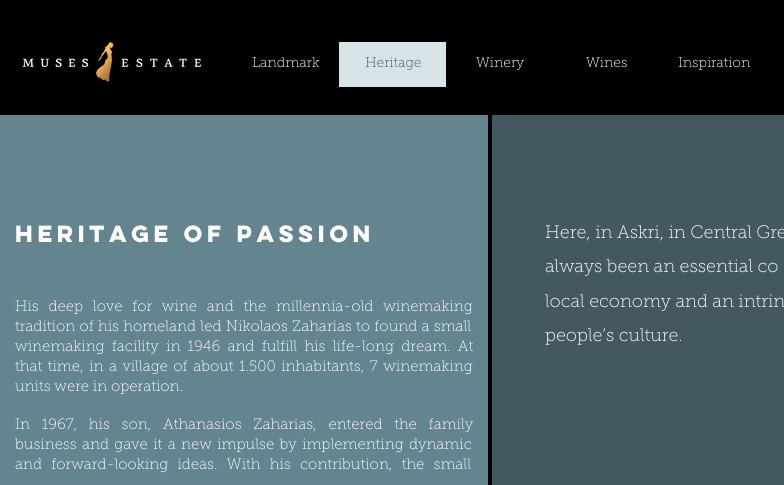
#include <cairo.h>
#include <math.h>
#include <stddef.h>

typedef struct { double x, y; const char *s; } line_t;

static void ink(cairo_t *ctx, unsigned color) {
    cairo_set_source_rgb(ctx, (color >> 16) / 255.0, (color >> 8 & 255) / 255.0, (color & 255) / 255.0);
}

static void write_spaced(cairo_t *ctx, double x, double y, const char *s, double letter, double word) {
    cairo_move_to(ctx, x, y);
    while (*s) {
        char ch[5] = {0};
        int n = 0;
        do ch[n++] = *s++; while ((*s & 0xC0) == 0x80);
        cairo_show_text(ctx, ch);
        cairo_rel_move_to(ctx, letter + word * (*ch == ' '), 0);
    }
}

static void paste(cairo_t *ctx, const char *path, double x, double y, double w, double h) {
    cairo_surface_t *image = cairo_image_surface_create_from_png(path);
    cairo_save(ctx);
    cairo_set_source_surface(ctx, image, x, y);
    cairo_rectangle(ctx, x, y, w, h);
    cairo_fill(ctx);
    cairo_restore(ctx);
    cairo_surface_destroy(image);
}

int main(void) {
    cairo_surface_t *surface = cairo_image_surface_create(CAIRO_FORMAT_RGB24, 784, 485);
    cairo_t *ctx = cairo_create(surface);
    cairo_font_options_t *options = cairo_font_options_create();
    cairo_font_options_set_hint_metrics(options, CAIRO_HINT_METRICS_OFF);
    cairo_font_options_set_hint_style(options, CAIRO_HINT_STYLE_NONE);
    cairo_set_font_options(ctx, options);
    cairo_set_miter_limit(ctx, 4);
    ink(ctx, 0x000000);
    cairo_paint(ctx);
    paste(ctx, "media/1.png", 22, 42, 180, 40);
    cairo_select_font_face(ctx, "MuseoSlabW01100 Thin", CAIRO_FONT_SLANT_NORMAL, CAIRO_FONT_WEIGHT_NORMAL);
    cairo_set_font_size(ctx, 14);
    ink(ctx, 0xFFFFFF);
    cairo_move_to(ctx, 252, 67);
    cairo_show_text(ctx, "Landmark");
    ink(ctx, 0xD8E3E8);
    cairo_rectangle(ctx, 339, 42, 107, 45);
    cairo_fill(ctx);
    ink(ctx, 0x43585F);
    cairo_move_to(ctx, 365, 67);
    cairo_show_text(ctx, "Heritage");
    ink(ctx, 0xFFFFFF);
    {
        static const line_t items[] = {
            {476, 67, "Winery"},
            {586, 67, "Wines"},
            {678, 67, "Inspiration"},
        };
        for (size_t i = 0; i < sizeof items / sizeof *items; i++) {
            cairo_move_to(ctx, items[i].x, items[i].y);
            cairo_show_text(ctx, items[i].s);
        }
    }
    ink(ctx, 0x64848F);
    cairo_rectangle(ctx, 0, 115, 488, 370);
    cairo_fill(ctx);
    cairo_select_font_face(ctx, "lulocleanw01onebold", CAIRO_FONT_SLANT_NORMAL, CAIRO_FONT_WEIGHT_BOLD);
    cairo_set_font_size(ctx, 21);
    ink(ctx, 0xFFFFFF);
    cairo_move_to(ctx, 15, 242);
    cairo_show_text(ctx, "heritage of passion");
    cairo_select_font_face(ctx, "MuseoSlabW01100 Thin", CAIRO_FONT_SLANT_NORMAL, CAIRO_FONT_WEIGHT_NORMAL);
    cairo_set_font_size(ctx, 15);
    write_spaced(ctx, 15, 311, "His deep love for wine and the millennia-old winemaking", 0, 6);
    write_spaced(ctx, 15, 331, "tradition of his homeland led Nikolaos Zaharias to found a small", 0, 0.5);
    write_spaced(ctx, 15, 351, "winemaking facility in 1946 and fulfill his life-long dream. At", 0, 3.5);
    write_spaced(ctx, 15, 371, "that time, in a village of about 1.500 inhabitants, 7 winemaking", 0, 1.75);
    cairo_move_to(ctx, 15, 391);
    cairo_show_text(ctx, "units were in operation.");
    write_spaced(ctx, 15, 429, "In 1967, his son, Athanasios Zaharias, entered the family", 0, 8);
    write_spaced(ctx, 15, 449, "business and gave it a new impulse by implementing dynamic", 0, 1.6);
    write_spaced(ctx, 15, 469, "and forward-looking ideas. With his contribution, the small", 0, 5.5);
    ink(ctx, 0x43585F);
    cairo_rectangle(ctx, 492, 115, 292, 370);
    cairo_fill(ctx);
    cairo_set_font_size(ctx, 18);
    ink(ctx, 0xFFFFFF);
    {
        static const line_t items[] = {
            {545, 238, "Here, in Askri, in Central Gre"},
            {545, 272, "always been an essential co"},
            {545, 307, "local economy and an intrin"},
            {545, 341, "people’s culture."},
        };
        for (size_t i = 0; i < sizeof items / sizeof *items; i++) {
            cairo_move_to(ctx, items[i].x, items[i].y);
            cairo_show_text(ctx, items[i].s);
        }
    }
    cairo_surface_write_to_png(surface, "image.png");
    cairo_font_options_destroy(options);
    cairo_destroy(ctx);
    cairo_surface_destroy(surface);
    return 0;
}
